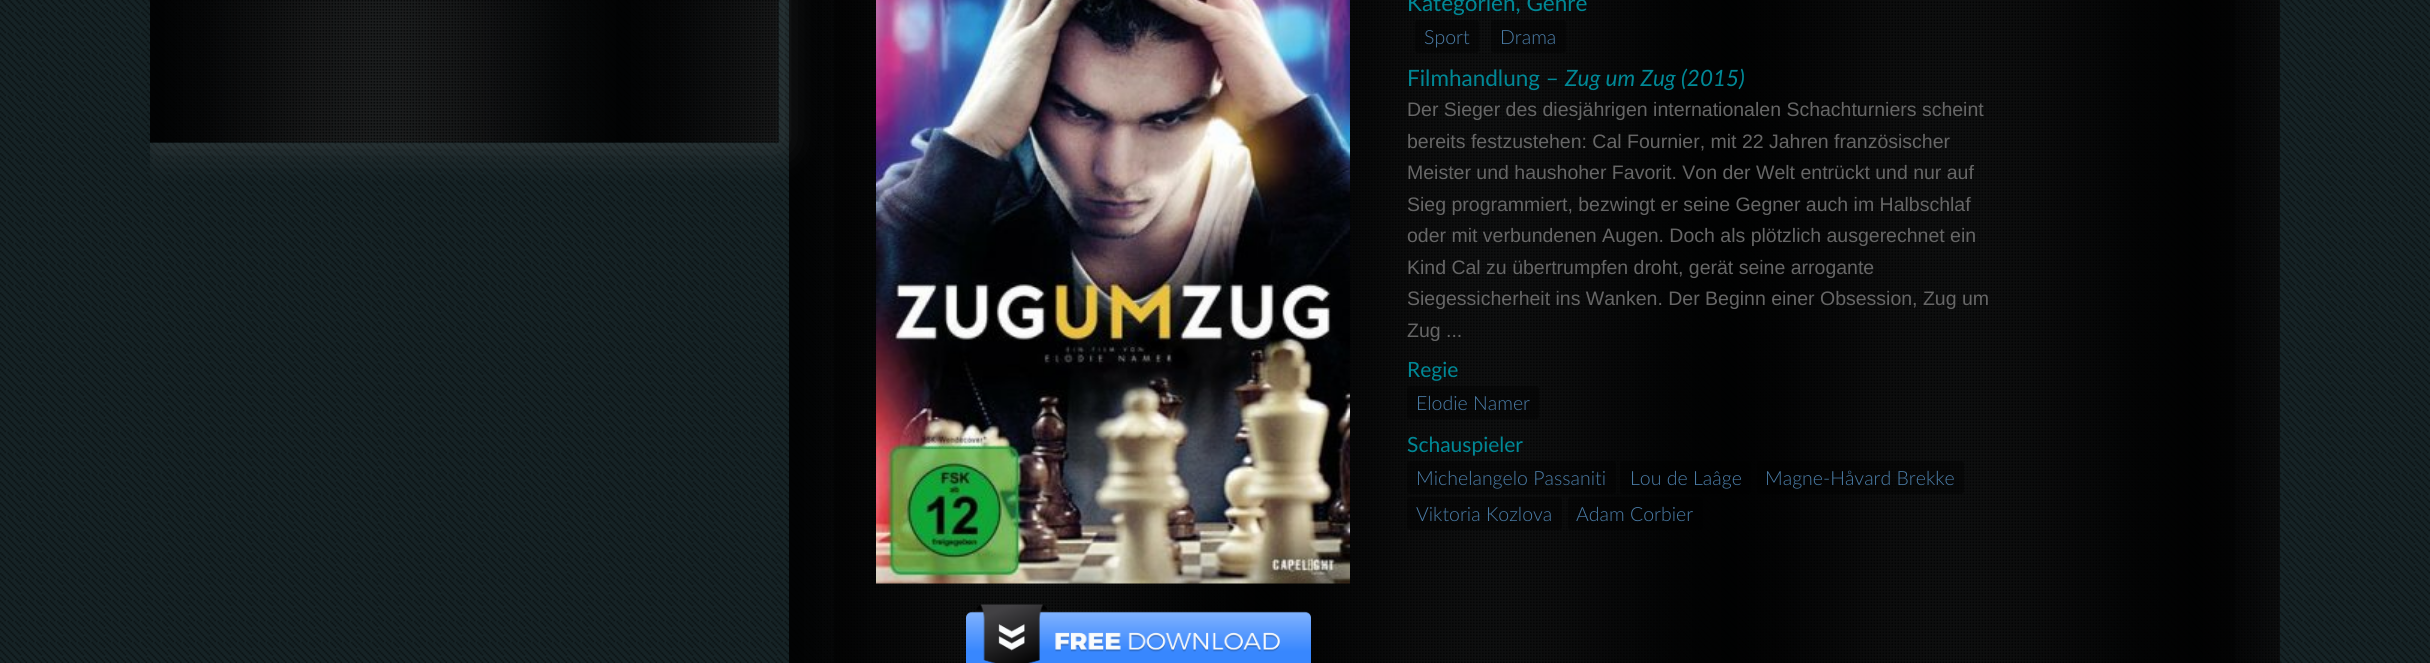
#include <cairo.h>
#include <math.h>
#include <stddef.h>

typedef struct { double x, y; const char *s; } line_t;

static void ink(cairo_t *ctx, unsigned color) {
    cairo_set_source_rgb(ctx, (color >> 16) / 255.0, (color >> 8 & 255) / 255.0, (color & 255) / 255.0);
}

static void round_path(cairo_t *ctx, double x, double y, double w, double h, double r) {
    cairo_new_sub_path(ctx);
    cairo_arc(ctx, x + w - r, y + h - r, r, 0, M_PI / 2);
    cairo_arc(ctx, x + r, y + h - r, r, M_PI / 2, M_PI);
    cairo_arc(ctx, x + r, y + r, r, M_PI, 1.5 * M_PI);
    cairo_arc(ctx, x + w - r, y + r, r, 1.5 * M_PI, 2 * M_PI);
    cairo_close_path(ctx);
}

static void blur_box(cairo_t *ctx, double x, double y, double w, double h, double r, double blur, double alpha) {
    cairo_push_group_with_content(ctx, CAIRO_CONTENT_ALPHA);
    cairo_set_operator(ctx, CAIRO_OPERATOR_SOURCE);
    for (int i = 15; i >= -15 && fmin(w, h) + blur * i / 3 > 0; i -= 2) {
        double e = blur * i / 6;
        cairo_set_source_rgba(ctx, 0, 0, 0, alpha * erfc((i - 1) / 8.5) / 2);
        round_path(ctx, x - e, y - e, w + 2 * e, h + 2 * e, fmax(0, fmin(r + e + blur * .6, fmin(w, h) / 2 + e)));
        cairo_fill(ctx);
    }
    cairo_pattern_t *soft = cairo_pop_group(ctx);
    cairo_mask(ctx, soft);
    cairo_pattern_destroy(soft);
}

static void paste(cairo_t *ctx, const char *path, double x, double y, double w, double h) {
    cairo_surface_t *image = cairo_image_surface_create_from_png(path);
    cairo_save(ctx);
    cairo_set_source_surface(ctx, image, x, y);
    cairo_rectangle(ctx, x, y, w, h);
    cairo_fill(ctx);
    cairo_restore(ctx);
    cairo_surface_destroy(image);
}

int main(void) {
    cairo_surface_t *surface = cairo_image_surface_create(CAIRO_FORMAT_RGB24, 2430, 663);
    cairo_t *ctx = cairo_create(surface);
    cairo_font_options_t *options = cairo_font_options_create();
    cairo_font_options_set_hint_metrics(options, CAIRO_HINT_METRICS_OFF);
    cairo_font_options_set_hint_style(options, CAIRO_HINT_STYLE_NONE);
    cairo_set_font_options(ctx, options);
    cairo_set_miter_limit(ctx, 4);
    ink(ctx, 0xFFFFFF);
    cairo_paint(ctx);
    paste(ctx, "media/1.png", 0, 0, 2430, 663);
    paste(ctx, "media/3.png", 789, 0, 1491, 663);
    cairo_save(ctx);
    cairo_rectangle(ctx, 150, 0, 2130, 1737);
    cairo_clip(ctx);
    cairo_set_fill_rule(ctx, CAIRO_FILL_RULE_EVEN_ODD);
    cairo_new_path(ctx);
    cairo_move_to(ctx, 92, 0);
    cairo_line_to(ctx, 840, 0);
    cairo_line_to(ctx, 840, 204);
    cairo_line_to(ctx, 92, 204);
    cairo_close_path(ctx);
    cairo_move_to(ctx, 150, -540);
    cairo_line_to(ctx, 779, -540);
    cairo_line_to(ctx, 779, 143);
    cairo_line_to(ctx, 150, 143);
    cairo_close_path(ctx);
    cairo_clip(ctx);
    ink(ctx, 0x7B7B7B);
    blur_box(ctx, 150, -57, 632, 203, 0, 19, 0.3);
    cairo_restore(ctx);
    paste(ctx, "media/2.png", 150, 0, 629, 143);
    cairo_set_source_rgba(ctx, 0, 0, 0, 0.45);
    cairo_rectangle(ctx, 834, 0, 1401, 663);
    cairo_fill(ctx);
    paste(ctx, "media/4.png", 876, 0, 474, 584);
    paste(ctx, "media/5.png", 966, 604, 345, 59);
    cairo_select_font_face(ctx, "Lato", CAIRO_FONT_SLANT_NORMAL, CAIRO_FONT_WEIGHT_NORMAL);
    cairo_set_font_size(ctx, 22.5);
    ink(ctx, 0x008896);
    cairo_move_to(ctx, 1407, 11);
    cairo_show_text(ctx, "Kategorien, Genre");
    cairo_set_source_rgba(ctx, 0, 0, 0, 0.4);
    round_path(ctx, 1415, 20, 64, 33, 3);
    cairo_fill(ctx);
    cairo_select_font_face(ctx, "Lato Light", CAIRO_FONT_SLANT_NORMAL, CAIRO_FONT_WEIGHT_NORMAL);
    cairo_set_font_size(ctx, 19.5);
    ink(ctx, 0x4B7EA9);
    cairo_move_to(ctx, 1424, 44);
    cairo_show_text(ctx, "Sport");
    cairo_set_source_rgba(ctx, 0, 0, 0, 0.4);
    round_path(ctx, 1491, 20, 75, 33, 3);
    cairo_fill(ctx);
    ink(ctx, 0x4B7EA9);
    cairo_move_to(ctx, 1500, 44);
    cairo_show_text(ctx, "Drama");
    cairo_select_font_face(ctx, "Lato", CAIRO_FONT_SLANT_NORMAL, CAIRO_FONT_WEIGHT_NORMAL);
    cairo_set_font_size(ctx, 22.5);
    ink(ctx, 0x008896);
    cairo_move_to(ctx, 1407, 86);
    cairo_show_text(ctx, "Filmhandlung –");
    cairo_select_font_face(ctx, "Lato", CAIRO_FONT_SLANT_ITALIC, CAIRO_FONT_WEIGHT_NORMAL);
    cairo_move_to(ctx, 1565, 86);
    cairo_show_text(ctx, "Zug um Zug (2015)");
    cairo_select_font_face(ctx, "Liberation Sans", CAIRO_FONT_SLANT_NORMAL, CAIRO_FONT_WEIGHT_NORMAL);
    cairo_set_font_size(ctx, 19.5);
    ink(ctx, 0x666666);
    {
        static const line_t items[] = {
            {1407, 116, "Der Sieger des diesjährigen internationalen Schachturniers scheint"},
            {1407, 148, "bereits festzustehen: Cal Fournier, mit 22 Jahren französischer"},
            {1407, 179, "Meister und haushoher Favorit. Von der Welt entrückt und nur auf"},
            {1407, 211, "Sieg programmiert, bezwingt er seine Gegner auch im Halbschlaf"},
            {1407, 242, "oder mit verbundenen Augen. Doch als plötzlich ausgerechnet ein"},
            {1407, 274, "Kind Cal zu übertrumpfen droht, gerät seine arrogante"},
            {1407, 305, "Siegessicherheit ins Wanken. Der Beginn einer Obsession, Zug um"},
            {1407, 337, "Zug ..."},
        };
        for (size_t i = 0; i < sizeof items / sizeof *items; i++) {
            cairo_move_to(ctx, items[i].x, items[i].y);
            cairo_show_text(ctx, items[i].s);
        }
    }
    cairo_select_font_face(ctx, "Lato", CAIRO_FONT_SLANT_NORMAL, CAIRO_FONT_WEIGHT_NORMAL);
    cairo_set_font_size(ctx, 21);
    ink(ctx, 0x008896);
    cairo_move_to(ctx, 1407, 377);
    cairo_show_text(ctx, "Regie");
    cairo_set_source_rgba(ctx, 0, 0, 0, 0.4);
    round_path(ctx, 1407, 386, 132, 33, 3);
    cairo_fill(ctx);
    cairo_select_font_face(ctx, "Lato Light", CAIRO_FONT_SLANT_NORMAL, CAIRO_FONT_WEIGHT_NORMAL);
    cairo_set_font_size(ctx, 19.5);
    ink(ctx, 0x4B7EA9);
    cairo_move_to(ctx, 1416, 410);
    cairo_show_text(ctx, "Elodie Namer");
    cairo_select_font_face(ctx, "Lato", CAIRO_FONT_SLANT_NORMAL, CAIRO_FONT_WEIGHT_NORMAL);
    cairo_set_font_size(ctx, 21);
    ink(ctx, 0x008896);
    cairo_move_to(ctx, 1407, 452);
    cairo_show_text(ctx, "Schauspieler");
    cairo_set_source_rgba(ctx, 0, 0, 0, 0.4);
    round_path(ctx, 1407, 461, 209, 33, 3);
    cairo_fill(ctx);
    cairo_select_font_face(ctx, "Lato Light", CAIRO_FONT_SLANT_NORMAL, CAIRO_FONT_WEIGHT_NORMAL);
    cairo_set_font_size(ctx, 19.5);
    ink(ctx, 0x4B7EA9);
    cairo_move_to(ctx, 1416, 485);
    cairo_show_text(ctx, "Michelangelo Passaniti");
    cairo_set_source_rgba(ctx, 0, 0, 0, 0.4);
    round_path(ctx, 1620, 461, 131, 33, 3);
    cairo_fill(ctx);
    ink(ctx, 0x4B7EA9);
    cairo_move_to(ctx, 1630, 485);
    cairo_show_text(ctx, "Lou de Laâge");
    cairo_set_source_rgba(ctx, 0, 0, 0, 0.4);
    round_path(ctx, 1757, 461, 207, 33, 3);
    cairo_fill(ctx);
    ink(ctx, 0x4B7EA9);
    cairo_move_to(ctx, 1765, 485);
    cairo_show_text(ctx, "Magne-Håvard Brekke");
    cairo_set_source_rgba(ctx, 0, 0, 0, 0.4);
    round_path(ctx, 1407, 497, 155, 33, 3);
    cairo_fill(ctx);
    ink(ctx, 0x4B7EA9);
    cairo_move_to(ctx, 1416, 521);
    cairo_show_text(ctx, "Viktoria Kozlova");
    cairo_set_source_rgba(ctx, 0, 0, 0, 0.4);
    round_path(ctx, 1568, 497, 135, 33, 3);
    cairo_fill(ctx);
    ink(ctx, 0x4B7EA9);
    cairo_move_to(ctx, 1576, 521);
    cairo_show_text(ctx, "Adam Corbier");
    cairo_surface_write_to_png(surface, "image.png");
    cairo_font_options_destroy(options);
    cairo_destroy(ctx);
    cairo_surface_destroy(surface);
    return 0;
}
